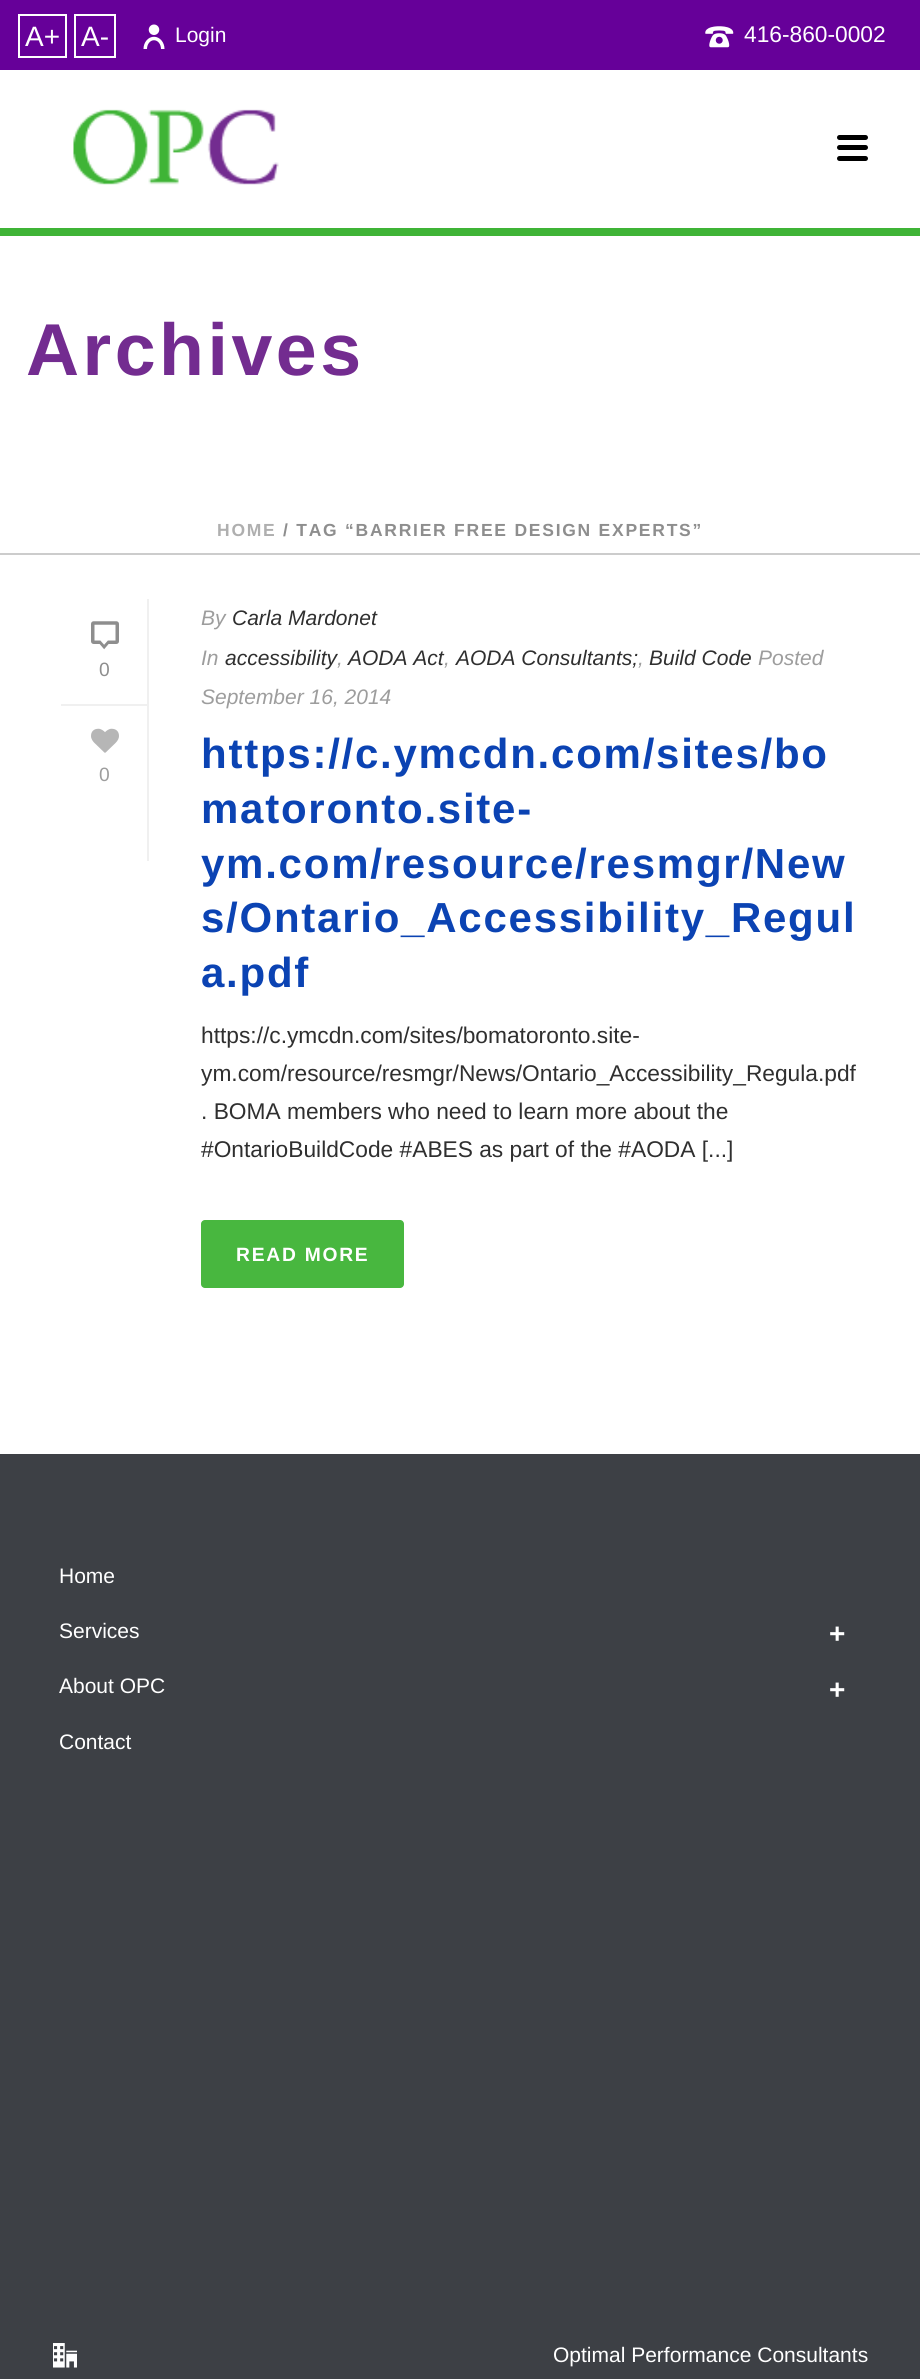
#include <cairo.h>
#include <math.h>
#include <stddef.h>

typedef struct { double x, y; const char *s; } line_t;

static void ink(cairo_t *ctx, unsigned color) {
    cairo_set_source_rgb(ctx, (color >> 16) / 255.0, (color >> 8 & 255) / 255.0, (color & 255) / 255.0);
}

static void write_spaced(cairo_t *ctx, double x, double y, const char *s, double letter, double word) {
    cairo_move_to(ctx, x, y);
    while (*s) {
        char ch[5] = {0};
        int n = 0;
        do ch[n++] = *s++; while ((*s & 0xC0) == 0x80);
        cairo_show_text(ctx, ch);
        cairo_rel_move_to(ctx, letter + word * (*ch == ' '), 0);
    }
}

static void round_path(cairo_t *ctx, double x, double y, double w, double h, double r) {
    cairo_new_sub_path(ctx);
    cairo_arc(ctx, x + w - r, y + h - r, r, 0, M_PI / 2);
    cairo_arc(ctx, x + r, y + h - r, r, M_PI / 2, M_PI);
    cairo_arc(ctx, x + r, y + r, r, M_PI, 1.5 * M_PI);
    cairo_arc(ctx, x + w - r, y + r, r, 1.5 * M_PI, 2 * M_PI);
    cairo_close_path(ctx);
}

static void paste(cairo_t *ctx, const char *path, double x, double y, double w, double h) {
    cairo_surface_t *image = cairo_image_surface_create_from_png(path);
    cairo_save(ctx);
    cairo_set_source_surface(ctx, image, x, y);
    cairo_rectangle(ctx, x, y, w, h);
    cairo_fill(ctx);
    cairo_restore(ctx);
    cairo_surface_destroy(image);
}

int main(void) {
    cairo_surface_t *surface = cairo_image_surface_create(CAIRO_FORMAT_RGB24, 920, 2379);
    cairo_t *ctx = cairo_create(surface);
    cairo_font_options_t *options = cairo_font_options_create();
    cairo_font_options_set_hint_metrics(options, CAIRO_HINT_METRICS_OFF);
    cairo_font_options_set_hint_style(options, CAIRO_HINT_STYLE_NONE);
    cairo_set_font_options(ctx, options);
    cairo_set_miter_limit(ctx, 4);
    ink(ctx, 0xFFFFFF);
    cairo_paint(ctx);
    ink(ctx, 0xCCCCCC);
    cairo_rectangle(ctx, 0, 553, 920, 2);
    cairo_fill(ctx);
    ink(ctx, 0x660099);
    cairo_rectangle(ctx, 0, 0, 920, 70);
    cairo_fill(ctx);
    cairo_rectangle(ctx, 19, 15, 47, 42);
    ink(ctx, 0xFFFFFF);
    cairo_stroke(ctx);
    cairo_select_font_face(ctx, "Liberation Sans", CAIRO_FONT_SLANT_NORMAL, CAIRO_FONT_WEIGHT_NORMAL);
    cairo_set_font_size(ctx, 28);
    cairo_move_to(ctx, 25, 46);
    cairo_show_text(ctx, "A+");
    cairo_rectangle(ctx, 75, 15, 40, 42);
    cairo_stroke(ctx);
    cairo_move_to(ctx, 81, 46);
    cairo_show_text(ctx, "A-");
    paste(ctx, "media/1.png", 143, 24, 22, 25);
    cairo_set_font_size(ctx, 21);
    cairo_move_to(ctx, 175, 42);
    cairo_show_text(ctx, "Login");
    paste(ctx, "media/2.png", 705, 26, 29, 22);
    cairo_set_font_size(ctx, 22.75);
    cairo_move_to(ctx, 744, 42);
    cairo_show_text(ctx, "416-860-0002");
    ink(ctx, 0x3FB436);
    cairo_rectangle(ctx, 0, 228, 920, 8);
    cairo_fill(ctx);
    paste(ctx, "media/3.png", 73, 109, 206, 76);
    ink(ctx, 0x000000);
    round_path(ctx, 837, 135, 31, 5, 2.5);
    cairo_fill(ctx);
    round_path(ctx, 837, 145, 31, 5, 2.5);
    cairo_fill(ctx);
    round_path(ctx, 837, 156, 31, 5, 2.5);
    cairo_fill(ctx);
    cairo_select_font_face(ctx, "Liberation Sans", CAIRO_FONT_SLANT_NORMAL, CAIRO_FONT_WEIGHT_BOLD);
    cairo_set_font_size(ctx, 73.5);
    ink(ctx, 0x732C90);
    write_spaced(ctx, 26, 375, "Archives", 3.5, 0);
    cairo_set_font_size(ctx, 17.5);
    ink(ctx, 0xAFAFAF);
    write_spaced(ctx, 217, 536, "HOME", 1.75, 0);
    ink(ctx, 0x8E8E8E);
    write_spaced(ctx, 283, 536, "/ TAG “BARRIER FREE DESIGN EXPERTS”", 1.75, 0);
    ink(ctx, 0xF0F0F0);
    cairo_rectangle(ctx, 147, 599, 2, 262);
    cairo_fill(ctx);
    cairo_rectangle(ctx, 61, 704, 86, 2);
    cairo_fill(ctx);
    paste(ctx, "media/4.png", 91, 621, 28, 29);
    cairo_select_font_face(ctx, "Liberation Sans", CAIRO_FONT_SLANT_NORMAL, CAIRO_FONT_WEIGHT_NORMAL);
    cairo_set_font_size(ctx, 19.25);
    ink(ctx, 0x8E8E8E);
    cairo_move_to(ctx, 99, 676);
    cairo_show_text(ctx, "0");
    paste(ctx, "media/5.png", 91, 728, 28, 25);
    ink(ctx, 0x9D9D9D);
    cairo_move_to(ctx, 99, 781);
    cairo_show_text(ctx, "0");
    cairo_select_font_face(ctx, "Liberation Sans", CAIRO_FONT_SLANT_ITALIC, CAIRO_FONT_WEIGHT_NORMAL);
    cairo_set_font_size(ctx, 21);
    cairo_move_to(ctx, 201, 625);
    cairo_show_text(ctx, "By");
    ink(ctx, 0x2F2F2F);
    cairo_move_to(ctx, 232, 625);
    cairo_show_text(ctx, "Carla Mardonet");
    ink(ctx, 0x9D9D9D);
    cairo_move_to(ctx, 201, 665);
    cairo_show_text(ctx, "In");
    ink(ctx, 0x2F2F2F);
    cairo_move_to(ctx, 225, 665);
    cairo_show_text(ctx, "accessibility");
    ink(ctx, 0x9D9D9D);
    cairo_move_to(ctx, 337, 665);
    cairo_show_text(ctx, ",");
    ink(ctx, 0x2F2F2F);
    cairo_move_to(ctx, 348, 665);
    cairo_show_text(ctx, "AODA Act");
    ink(ctx, 0x9D9D9D);
    cairo_move_to(ctx, 444, 665);
    cairo_show_text(ctx, ",");
    ink(ctx, 0x2F2F2F);
    cairo_move_to(ctx, 456, 665);
    cairo_show_text(ctx, "AODA Consultants;");
    ink(ctx, 0x9D9D9D);
    cairo_move_to(ctx, 638, 665);
    cairo_show_text(ctx, ",");
    ink(ctx, 0x2F2F2F);
    cairo_move_to(ctx, 649, 665);
    cairo_show_text(ctx, "Build Code");
    ink(ctx, 0x9D9D9D);
    cairo_move_to(ctx, 758, 665);
    cairo_show_text(ctx, "Posted");
    cairo_move_to(ctx, 201, 704);
    cairo_show_text(ctx, "September 16, 2014");
    cairo_select_font_face(ctx, "Liberation Sans", CAIRO_FONT_SLANT_NORMAL, CAIRO_FONT_WEIGHT_BOLD);
    cairo_set_font_size(ctx, 42);
    ink(ctx, 0x0B43B3);
    {
        static const line_t items[] = {
            {201, 768, "https://c.ymcdn.com/sites/bo"},
            {201, 823, "matoronto.site-"},
            {201, 878, "ym.com/resource/resmgr/New"},
            {201, 932, "s/Ontario_Accessibility_Regul"},
            {201, 987, "a.pdf"},
        };
        for (size_t i = 0; i < sizeof items / sizeof *items; i++) {
            write_spaced(ctx, items[i].x, items[i].y, items[i].s, 1.75, 0);
        }
    }
    cairo_select_font_face(ctx, "Liberation Sans", CAIRO_FONT_SLANT_NORMAL, CAIRO_FONT_WEIGHT_NORMAL);
    cairo_set_font_size(ctx, 22.75);
    ink(ctx, 0x2F2F2F);
    {
        static const line_t items[] = {
            {201, 1043, "https://c.ymcdn.com/sites/bomatoronto.site-"},
            {201, 1081, "ym.com/resource/resmgr/News/Ontario_Accessibility_Regula.pdf"},
            {201, 1119, ". BOMA members who need to learn more about the"},
            {201, 1157, "#OntarioBuildCode #ABES as part of the #AODA [...]"},
        };
        for (size_t i = 0; i < sizeof items / sizeof *items; i++) {
            cairo_move_to(ctx, items[i].x, items[i].y);
            cairo_show_text(ctx, items[i].s);
        }
    }
    ink(ctx, 0x48B73F);
    round_path(ctx, 201, 1220, 203, 68, 4);
    cairo_fill(ctx);
    cairo_select_font_face(ctx, "Liberation Sans", CAIRO_FONT_SLANT_NORMAL, CAIRO_FONT_WEIGHT_BOLD);
    cairo_set_font_size(ctx, 19.25);
    ink(ctx, 0xFFFFFF);
    write_spaced(ctx, 236, 1261, "READ MORE", 1.75, 0);
    ink(ctx, 0x3D4045);
    cairo_rectangle(ctx, 0, 1454, 920, 925);
    cairo_fill(ctx);
    cairo_select_font_face(ctx, "Liberation Sans", CAIRO_FONT_SLANT_NORMAL, CAIRO_FONT_WEIGHT_NORMAL);
    cairo_set_font_size(ctx, 21);
    ink(ctx, 0xFFFFFF);
    cairo_move_to(ctx, 59, 1583);
    cairo_show_text(ctx, "Home");
    cairo_move_to(ctx, 59, 1638);
    cairo_show_text(ctx, "Services");
    cairo_select_font_face(ctx, "Liberation Sans", CAIRO_FONT_SLANT_NORMAL, CAIRO_FONT_WEIGHT_BOLD);
    cairo_set_font_size(ctx, 28);
    cairo_move_to(ctx, 829, 1643);
    cairo_show_text(ctx, "+");
    cairo_select_font_face(ctx, "Liberation Sans", CAIRO_FONT_SLANT_NORMAL, CAIRO_FONT_WEIGHT_NORMAL);
    cairo_set_font_size(ctx, 21);
    cairo_move_to(ctx, 59, 1693);
    cairo_show_text(ctx, "About OPC");
    cairo_select_font_face(ctx, "Liberation Sans", CAIRO_FONT_SLANT_NORMAL, CAIRO_FONT_WEIGHT_BOLD);
    cairo_set_font_size(ctx, 28);
    cairo_move_to(ctx, 829, 1699);
    cairo_show_text(ctx, "+");
    cairo_select_font_face(ctx, "Liberation Sans", CAIRO_FONT_SLANT_NORMAL, CAIRO_FONT_WEIGHT_NORMAL);
    cairo_set_font_size(ctx, 21);
    cairo_move_to(ctx, 59, 1749);
    cairo_show_text(ctx, "Contact");
    paste(ctx, "media/6.png", 53, 2343, 24, 25);
    cairo_move_to(ctx, 553, 2362);
    cairo_show_text(ctx, "Optimal Performance Consultants");
    cairo_surface_write_to_png(surface, "image.png");
    cairo_font_options_destroy(options);
    cairo_destroy(ctx);
    cairo_surface_destroy(surface);
    return 0;
}
